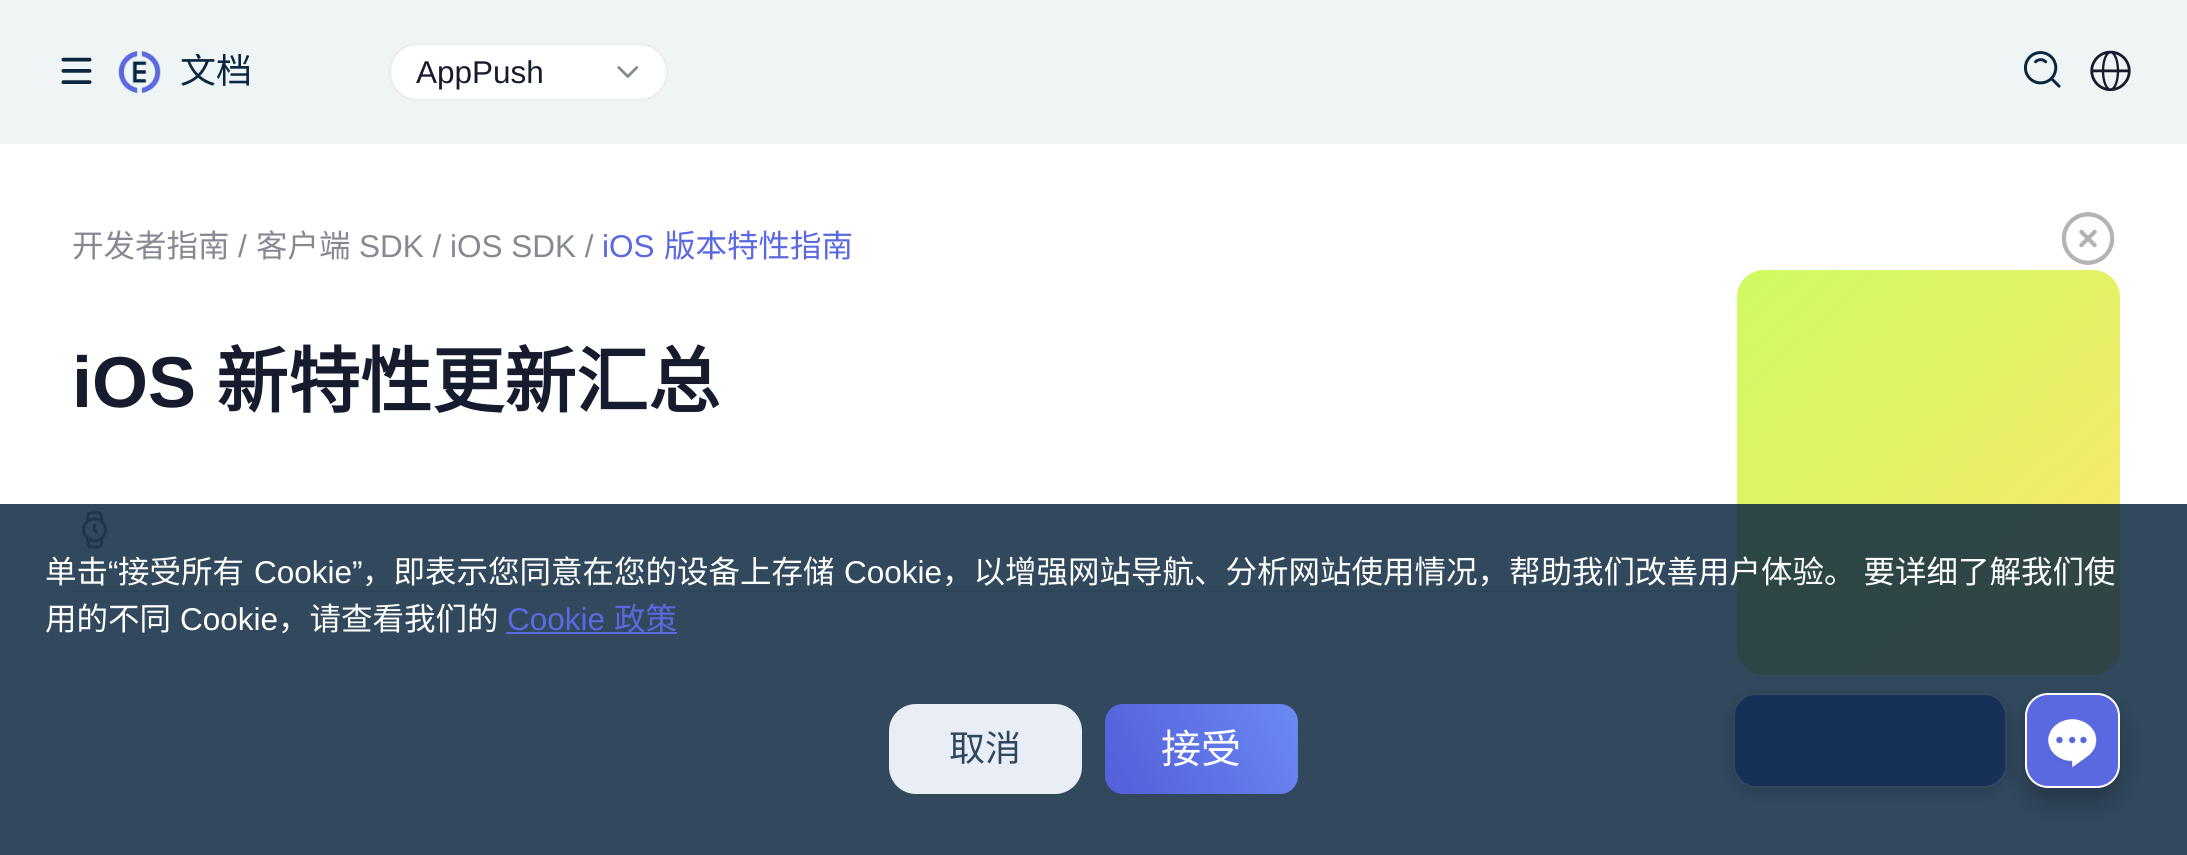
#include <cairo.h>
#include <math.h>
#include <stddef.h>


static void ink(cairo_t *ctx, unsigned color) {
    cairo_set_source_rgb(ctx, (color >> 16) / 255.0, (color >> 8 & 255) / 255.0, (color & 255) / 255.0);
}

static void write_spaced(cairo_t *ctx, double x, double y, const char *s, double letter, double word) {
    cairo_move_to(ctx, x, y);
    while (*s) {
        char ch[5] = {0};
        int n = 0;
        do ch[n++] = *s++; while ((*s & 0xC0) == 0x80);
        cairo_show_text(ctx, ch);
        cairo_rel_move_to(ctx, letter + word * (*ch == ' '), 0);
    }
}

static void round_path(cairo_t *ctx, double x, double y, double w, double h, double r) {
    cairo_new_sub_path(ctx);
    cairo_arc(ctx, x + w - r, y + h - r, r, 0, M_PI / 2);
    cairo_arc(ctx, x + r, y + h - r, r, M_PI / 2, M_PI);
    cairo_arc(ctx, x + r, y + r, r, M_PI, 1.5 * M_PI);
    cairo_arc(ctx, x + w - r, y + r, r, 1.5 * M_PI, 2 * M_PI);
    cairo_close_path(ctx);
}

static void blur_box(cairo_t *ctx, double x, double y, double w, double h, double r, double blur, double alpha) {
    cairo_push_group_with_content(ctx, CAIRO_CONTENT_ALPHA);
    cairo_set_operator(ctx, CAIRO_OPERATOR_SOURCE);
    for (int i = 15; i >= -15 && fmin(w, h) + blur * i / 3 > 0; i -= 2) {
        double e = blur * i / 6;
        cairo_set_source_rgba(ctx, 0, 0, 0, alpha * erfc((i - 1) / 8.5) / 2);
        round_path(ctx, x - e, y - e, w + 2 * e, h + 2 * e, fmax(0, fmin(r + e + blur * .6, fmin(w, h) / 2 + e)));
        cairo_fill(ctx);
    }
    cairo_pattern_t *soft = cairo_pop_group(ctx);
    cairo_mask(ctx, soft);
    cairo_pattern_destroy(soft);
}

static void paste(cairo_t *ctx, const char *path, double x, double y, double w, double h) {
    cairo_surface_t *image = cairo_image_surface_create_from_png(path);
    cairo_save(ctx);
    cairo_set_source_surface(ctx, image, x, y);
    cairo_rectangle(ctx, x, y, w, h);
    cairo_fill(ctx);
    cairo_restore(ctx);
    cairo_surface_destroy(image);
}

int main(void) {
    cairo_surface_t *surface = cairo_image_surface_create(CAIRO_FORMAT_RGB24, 2187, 855);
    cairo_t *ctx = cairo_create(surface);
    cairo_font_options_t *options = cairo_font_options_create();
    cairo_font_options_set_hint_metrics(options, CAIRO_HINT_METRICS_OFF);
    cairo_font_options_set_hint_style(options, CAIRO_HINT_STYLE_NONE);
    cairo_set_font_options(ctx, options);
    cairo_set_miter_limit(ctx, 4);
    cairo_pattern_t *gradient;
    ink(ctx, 0xFFFFFF);
    cairo_paint(ctx);
    ink(ctx, 0xEFF5F5);
    cairo_rectangle(ctx, 0, 0, 2187, 144);
    cairo_fill(ctx);
    paste(ctx, "media/1.png", 61, 57, 31, 27);
    paste(ctx, "media/2.png", 118, 51, 43, 42);
    cairo_save(ctx);
    cairo_rectangle(ctx, 180, 54, 191, 36);
    cairo_clip(ctx);
    cairo_select_font_face(ctx, "Noto Sans CJK SC", CAIRO_FONT_SLANT_NORMAL, CAIRO_FONT_WEIGHT_NORMAL);
    cairo_set_font_size(ctx, 36);
    ink(ctx, 0x0B2640);
    cairo_move_to(ctx, 180, 83);
    cairo_show_text(ctx, "文档");
    cairo_restore(ctx);
    ink(ctx, 0xFFFFFF);
    round_path(ctx, 390, 44, 277, 56, 28);
    cairo_fill_preserve(ctx);
    ink(ctx, 0xEDEDED);
    cairo_stroke(ctx);
    cairo_select_font_face(ctx, "Liberation Sans", CAIRO_FONT_SLANT_NORMAL, CAIRO_FONT_WEIGHT_NORMAL);
    cairo_set_font_size(ctx, 31.5);
    ink(ctx, 0x161C2D);
    cairo_move_to(ctx, 416, 83);
    cairo_show_text(ctx, "AppPush");
    paste(ctx, "media/3.png", 617, 66, 22, 12);
    paste(ctx, "media/4.png", 2023, 51, 38, 37);
    paste(ctx, "media/5.png", 2090, 50, 41, 42);
    cairo_select_font_face(ctx, "Noto Sans CJK SC", CAIRO_FONT_SLANT_NORMAL, CAIRO_FONT_WEIGHT_NORMAL);
    ink(ctx, 0x868992);
    cairo_move_to(ctx, 72, 257);
    cairo_show_text(ctx, "开发者指南");
    cairo_select_font_face(ctx, "Liberation Sans", CAIRO_FONT_SLANT_NORMAL, CAIRO_FONT_WEIGHT_NORMAL);
    cairo_move_to(ctx, 238, 257);
    cairo_show_text(ctx, "/");
    cairo_select_font_face(ctx, "Noto Sans CJK SC", CAIRO_FONT_SLANT_NORMAL, CAIRO_FONT_WEIGHT_NORMAL);
    cairo_move_to(ctx, 256, 257);
    cairo_show_text(ctx, "客户端");
    cairo_select_font_face(ctx, "Liberation Sans", CAIRO_FONT_SLANT_NORMAL, CAIRO_FONT_WEIGHT_NORMAL);
    cairo_move_to(ctx, 359, 257);
    cairo_show_text(ctx, "SDK / iOS SDK /");
    ink(ctx, 0x5A69E0);
    cairo_move_to(ctx, 602, 257);
    cairo_show_text(ctx, "iOS");
    cairo_select_font_face(ctx, "Noto Sans CJK SC", CAIRO_FONT_SLANT_NORMAL, CAIRO_FONT_WEIGHT_NORMAL);
    cairo_move_to(ctx, 664, 257);
    cairo_show_text(ctx, "版本特性指南");
    cairo_select_font_face(ctx, "Liberation Sans", CAIRO_FONT_SLANT_NORMAL, CAIRO_FONT_WEIGHT_BOLD);
    cairo_set_font_size(ctx, 72);
    ink(ctx, 0x161C2D);
    cairo_move_to(ctx, 72, 407);
    cairo_show_text(ctx, "iOS");
    cairo_select_font_face(ctx, "Noto Sans CJK SC", CAIRO_FONT_SLANT_NORMAL, CAIRO_FONT_WEIGHT_BOLD);
    cairo_move_to(ctx, 216, 407);
    cairo_show_text(ctx, "新特性更新汇总");
    ink(ctx, 0xE4E8ED);
    cairo_rectangle(ctx, 72, 590, 1665, 2);
    cairo_fill(ctx);
    paste(ctx, "media/6.png", 82, 511, 25, 38);
    gradient = cairo_pattern_create_linear(1742, 266, 2115, 679);
    cairo_pattern_add_color_stop_rgba(gradient, 0, 0.808, 0.984, 0.384, 1);
    cairo_pattern_add_color_stop_rgba(gradient, 1, 1, 0.902, 0.427, 1);
    cairo_set_source(ctx, gradient);
    cairo_pattern_destroy(gradient);
    round_path(ctx, 1737, 270, 383, 405, 27);
    cairo_fill(ctx);
    paste(ctx, "media/7.png", 2062, 212, 53, 53);
    ink(ctx, 0x000000);
    blur_box(ctx, 1733, 698, 274, 94, 23, 7, 0.3);
    ink(ctx, 0x5A69E0);
    round_path(ctx, 1734, 694, 272, 93, 22);
    cairo_fill_preserve(ctx);
    ink(ctx, 0xFFFFFF);
    cairo_stroke(ctx);
    cairo_set_source_rgba(ctx, 0.043, 0.149, 0.251, 0.84);
    cairo_rectangle(ctx, 0, 504, 2187, 351);
    cairo_fill(ctx);
    cairo_select_font_face(ctx, "Noto Sans CJK SC", CAIRO_FONT_SLANT_NORMAL, CAIRO_FONT_WEIGHT_NORMAL);
    cairo_set_font_size(ctx, 31.5);
    ink(ctx, 0xFFFFFF);
    cairo_move_to(ctx, 45, 583);
    cairo_show_text(ctx, "单击");
    cairo_select_font_face(ctx, "Liberation Sans", CAIRO_FONT_SLANT_NORMAL, CAIRO_FONT_WEIGHT_NORMAL);
    cairo_move_to(ctx, 108, 583);
    cairo_show_text(ctx, "“");
    cairo_select_font_face(ctx, "Noto Sans CJK SC", CAIRO_FONT_SLANT_NORMAL, CAIRO_FONT_WEIGHT_NORMAL);
    cairo_move_to(ctx, 118, 583);
    cairo_show_text(ctx, "接受所有");
    cairo_select_font_face(ctx, "Liberation Sans", CAIRO_FONT_SLANT_NORMAL, CAIRO_FONT_WEIGHT_NORMAL);
    cairo_move_to(ctx, 254, 583);
    cairo_show_text(ctx, "Cookie”");
    cairo_select_font_face(ctx, "Noto Sans CJK SC", CAIRO_FONT_SLANT_NORMAL, CAIRO_FONT_WEIGHT_NORMAL);
    cairo_move_to(ctx, 362, 583);
    cairo_show_text(ctx, "，即表示您同意在您的设备上存储");
    cairo_select_font_face(ctx, "Liberation Sans", CAIRO_FONT_SLANT_NORMAL, CAIRO_FONT_WEIGHT_NORMAL);
    cairo_move_to(ctx, 844, 583);
    cairo_show_text(ctx, "Cookie");
    cairo_select_font_face(ctx, "Noto Sans CJK SC", CAIRO_FONT_SLANT_NORMAL, CAIRO_FONT_WEIGHT_NORMAL);
    write_spaced(ctx, 942, 583, "，以增强网站导航、分析网站使用情况，帮助我们改善用户体验。 要详细了解我们使", 0, 1);
    cairo_move_to(ctx, 45, 630);
    cairo_show_text(ctx, "用的不同");
    cairo_select_font_face(ctx, "Liberation Sans", CAIRO_FONT_SLANT_NORMAL, CAIRO_FONT_WEIGHT_NORMAL);
    cairo_move_to(ctx, 180, 630);
    cairo_show_text(ctx, "Cookie");
    cairo_select_font_face(ctx, "Noto Sans CJK SC", CAIRO_FONT_SLANT_NORMAL, CAIRO_FONT_WEIGHT_NORMAL);
    cairo_move_to(ctx, 278, 630);
    cairo_show_text(ctx, "，请查看我们的");
    cairo_select_font_face(ctx, "Liberation Sans", CAIRO_FONT_SLANT_NORMAL, CAIRO_FONT_WEIGHT_NORMAL);
    ink(ctx, 0x5A69E0);
    cairo_move_to(ctx, 507, 630);
    cairo_show_text(ctx, "Cookie");
    cairo_rectangle(ctx, 506, 632, 171, 2);
    cairo_fill(ctx);
    cairo_select_font_face(ctx, "Noto Sans CJK SC", CAIRO_FONT_SLANT_NORMAL, CAIRO_FONT_WEIGHT_NORMAL);
    cairo_move_to(ctx, 614, 630);
    cairo_show_text(ctx, "政策");
    ink(ctx, 0xE9EEF6);
    round_path(ctx, 889, 704, 193, 90, 27);
    cairo_fill(ctx);
    cairo_set_font_size(ctx, 36);
    ink(ctx, 0x2F465D);
    cairo_move_to(ctx, 949, 761);
    cairo_show_text(ctx, "取消");
    gradient = cairo_pattern_create_linear(1296, 699, 1107, 799);
    cairo_pattern_add_color_stop_rgba(gradient, 0, 0.412, 0.541, 0.953, 1);
    cairo_pattern_add_color_stop_rgba(gradient, 1, 0.329, 0.365, 0.851, 1);
    cairo_set_source(ctx, gradient);
    cairo_pattern_destroy(gradient);
    round_path(ctx, 1105, 704, 193, 90, 18);
    cairo_fill(ctx);
    cairo_set_font_size(ctx, 40);
    ink(ctx, 0xFFFFFF);
    cairo_move_to(ctx, 1161, 763);
    cairo_show_text(ctx, "接受");
    ink(ctx, 0x000000);
    blur_box(ctx, 2025, 707, 95, 94, 23, 11, 0.25);
    ink(ctx, 0x5A69E0);
    round_path(ctx, 2026, 694, 93, 93, 22);
    cairo_fill_preserve(ctx);
    ink(ctx, 0xFFFFFF);
    cairo_stroke(ctx);
    paste(ctx, "media/8.png", 2048, 719, 49, 49);
    cairo_surface_write_to_png(surface, "image.png");
    cairo_font_options_destroy(options);
    cairo_destroy(ctx);
    cairo_surface_destroy(surface);
    return 0;
}
